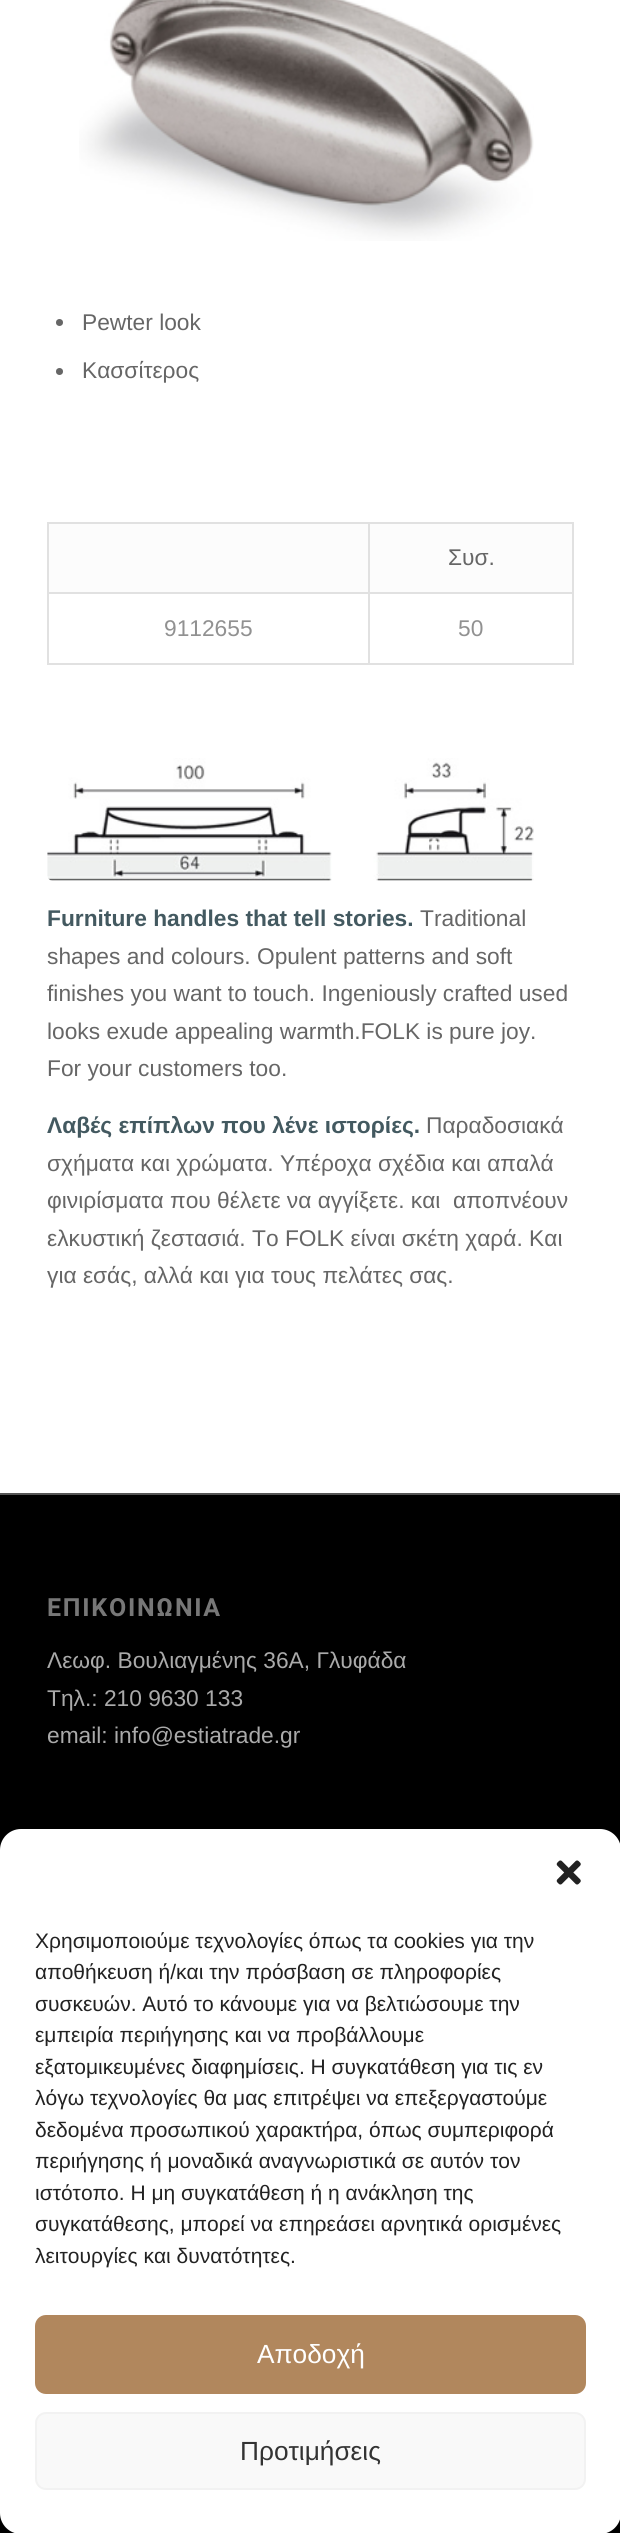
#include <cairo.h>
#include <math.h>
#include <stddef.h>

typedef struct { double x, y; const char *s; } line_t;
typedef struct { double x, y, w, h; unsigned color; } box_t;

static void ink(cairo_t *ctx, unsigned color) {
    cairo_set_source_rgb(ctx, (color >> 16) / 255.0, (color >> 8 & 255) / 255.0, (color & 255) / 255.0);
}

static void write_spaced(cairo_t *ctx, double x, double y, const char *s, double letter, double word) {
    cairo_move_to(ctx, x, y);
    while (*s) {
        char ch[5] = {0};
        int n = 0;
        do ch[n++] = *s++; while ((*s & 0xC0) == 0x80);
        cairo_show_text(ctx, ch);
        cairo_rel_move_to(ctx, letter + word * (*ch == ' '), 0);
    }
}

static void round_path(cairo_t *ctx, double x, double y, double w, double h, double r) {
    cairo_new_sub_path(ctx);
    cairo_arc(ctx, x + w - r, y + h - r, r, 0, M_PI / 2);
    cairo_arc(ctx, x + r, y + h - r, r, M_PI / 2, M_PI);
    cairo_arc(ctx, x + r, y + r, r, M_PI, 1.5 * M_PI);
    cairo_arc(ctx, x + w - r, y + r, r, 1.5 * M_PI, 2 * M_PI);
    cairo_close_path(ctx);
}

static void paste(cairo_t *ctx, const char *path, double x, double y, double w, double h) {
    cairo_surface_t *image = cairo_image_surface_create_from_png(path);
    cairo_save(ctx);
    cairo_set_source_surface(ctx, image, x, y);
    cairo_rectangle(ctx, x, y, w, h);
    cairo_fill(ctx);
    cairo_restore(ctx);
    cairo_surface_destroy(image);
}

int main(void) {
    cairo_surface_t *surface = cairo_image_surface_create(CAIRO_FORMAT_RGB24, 620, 2533);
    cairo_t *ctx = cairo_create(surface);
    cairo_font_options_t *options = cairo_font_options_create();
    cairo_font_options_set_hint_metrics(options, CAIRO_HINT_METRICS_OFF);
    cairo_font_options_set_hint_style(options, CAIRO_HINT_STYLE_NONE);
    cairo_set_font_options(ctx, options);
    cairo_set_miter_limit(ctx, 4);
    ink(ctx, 0xFFFFFF);
    cairo_paint(ctx);
    paste(ctx, "media/1.png", 79, 0, 455, 241);
    ink(ctx, 0x666666);
    cairo_arc(ctx, 59.5, 322.5, 3.5, 0, 2 * M_PI);
    cairo_fill(ctx);
    cairo_select_font_face(ctx, "Liberation Sans", CAIRO_FONT_SLANT_NORMAL, CAIRO_FONT_WEIGHT_NORMAL);
    cairo_set_font_size(ctx, 22.75);
    cairo_move_to(ctx, 82, 330);
    cairo_show_text(ctx, "Pewter look");
    cairo_new_path(ctx);
    cairo_arc(ctx, 59.5, 371.5, 3.5, 0, 2 * M_PI);
    cairo_fill(ctx);
    cairo_move_to(ctx, 82, 378);
    cairo_show_text(ctx, "Κασσίτερος");
    {
        static const box_t items[] = {
            {49, 524, 523, 68, 0xFCFCFC},
            {47, 522, 527, 2, 0xE1E1E1},
            {572, 592, 2, 73, 0xE1E1E1},
            {572, 522, 2, 71, 0xE1E1E1},
            {368, 663, 206, 2, 0xE1E1E1},
            {368, 592, 2, 73, 0xE1E1E1},
            {368, 592, 206, 2, 0xE1E1E1},
            {368, 522, 2, 71, 0xE1E1E1},
            {47, 663, 322, 2, 0xE1E1E1},
            {47, 592, 2, 73, 0xE1E1E1},
            {47, 592, 322, 2, 0xE1E1E1},
            {47, 522, 2, 71, 0xE1E1E1},
        };
        for (size_t i = 0; i < sizeof items / sizeof *items; i++) {
            ink(ctx, items[i].color);
            cairo_rectangle(ctx, items[i].x, items[i].y, items[i].w, items[i].h);
            cairo_fill(ctx);
        }
    }
    ink(ctx, 0x666666);
    cairo_move_to(ctx, 448, 565);
    cairo_show_text(ctx, "Συσ.");
    ink(ctx, 0x919191);
    cairo_move_to(ctx, 164, 636);
    cairo_show_text(ctx, "9112655");
    cairo_move_to(ctx, 458, 636);
    cairo_show_text(ctx, "50");
    paste(ctx, "media/2.png", 47, 758, 487, 123);
    cairo_select_font_face(ctx, "Liberation Sans", CAIRO_FONT_SLANT_NORMAL, CAIRO_FONT_WEIGHT_BOLD);
    ink(ctx, 0x435960);
    cairo_move_to(ctx, 47, 926);
    cairo_show_text(ctx, "Furniture handles that tell stories.");
    cairo_select_font_face(ctx, "Liberation Sans", CAIRO_FONT_SLANT_NORMAL, CAIRO_FONT_WEIGHT_NORMAL);
    ink(ctx, 0x666666);
    {
        static const line_t items[] = {
            {420, 926, "Traditional"},
            {47, 964, "shapes and colours. Opulent patterns and soft"},
            {47, 1001, "finishes you want to touch. Ingeniously crafted used"},
            {47, 1039, "looks exude appealing warmth.FOLK is pure joy."},
            {47, 1076, "For your customers too."},
        };
        for (size_t i = 0; i < sizeof items / sizeof *items; i++) {
            cairo_move_to(ctx, items[i].x, items[i].y);
            cairo_show_text(ctx, items[i].s);
        }
    }
    cairo_select_font_face(ctx, "Liberation Sans", CAIRO_FONT_SLANT_NORMAL, CAIRO_FONT_WEIGHT_BOLD);
    ink(ctx, 0x435960);
    cairo_move_to(ctx, 47, 1133);
    cairo_show_text(ctx, "Λαβές επίπλων που λένε ιστορίες.");
    cairo_select_font_face(ctx, "Liberation Sans", CAIRO_FONT_SLANT_NORMAL, CAIRO_FONT_WEIGHT_NORMAL);
    ink(ctx, 0x666666);
    {
        static const line_t items[] = {
            {426, 1133, "Παραδοσιακά"},
            {47, 1171, "σχήματα και χρώματα. Υπέροχα σχέδια και απαλά"},
            {47, 1208, "φινιρίσματα που θέλετε να αγγίξετε. και  αποπνέουν"},
            {47, 1246, "ελκυστική ζεστασιά. Το FOLK είναι σκέτη χαρά. Και"},
            {47, 1283, "για εσάς, αλλά και για τους πελάτες σας."},
        };
        for (size_t i = 0; i < sizeof items / sizeof *items; i++) {
            cairo_move_to(ctx, items[i].x, items[i].y);
            cairo_show_text(ctx, items[i].s);
        }
    }
    ink(ctx, 0x000000);
    cairo_rectangle(ctx, 0, 1495, 620, 1038);
    cairo_fill(ctx);
    ink(ctx, 0x555555);
    cairo_rectangle(ctx, 0, 1493, 620, 2);
    cairo_fill(ctx);
    cairo_select_font_face(ctx, "Roboto", CAIRO_FONT_SLANT_NORMAL, CAIRO_FONT_WEIGHT_BOLD);
    cairo_set_font_size(ctx, 25);
    ink(ctx, 0x777777);
    write_spaced(ctx, 47, 1616, "ΕΠΙΚΟΙΝΩΝΙΑ", 1.75, 0);
    cairo_select_font_face(ctx, "Liberation Sans", CAIRO_FONT_SLANT_NORMAL, CAIRO_FONT_WEIGHT_NORMAL);
    cairo_set_font_size(ctx, 22.75);
    ink(ctx, 0xAAAAAA);
    {
        static const line_t items[] = {
            {47, 1668, "Λεωφ. Βουλιαγμένης 36Α, Γλυφάδα"},
            {47, 1706, "Τηλ.: 210 9630 133"},
            {47, 1743, "email: info@estiatrade.gr"},
        };
        for (size_t i = 0; i < sizeof items / sizeof *items; i++) {
            cairo_move_to(ctx, items[i].x, items[i].y);
            cairo_show_text(ctx, items[i].s);
        }
    }
    ink(ctx, 0xFFFFFF);
    round_path(ctx, 0, 1829, 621, 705, 21);
    cairo_fill(ctx);
    paste(ctx, "media/3.png", 556, 1860, 25, 25);
    cairo_set_font_size(ctx, 21);
    ink(ctx, 0x222222);
    {
        static const line_t items[] = {
            {35, 1948, "Χρησιμοποιούμε τεχνολογίες όπως τα cookies για την"},
            {35, 1979, "αποθήκευση ή/και την πρόσβαση σε πληροφορίες"},
            {35, 2011, "συσκευών. Αυτό το κάνουμε για να βελτιώσουμε την"},
            {35, 2042, "εμπειρία περιήγησης και να προβάλλουμε"},
            {35, 2074, "εξατομικευμένες διαφημίσεις. Η συγκατάθεση για τις εν"},
            {35, 2105, "λόγω τεχνολογίες θα μας επιτρέψει να επεξεργαστούμε"},
            {35, 2137, "δεδομένα προσωπικού χαρακτήρα, όπως συμπεριφορά"},
            {35, 2168, "περιήγησης ή μοναδικά αναγνωριστικά σε αυτόν τον"},
            {35, 2200, "ιστότοπο. Η μη συγκατάθεση ή η ανάκληση της"},
            {35, 2231, "συγκατάθεσης, μπορεί να επηρεάσει αρνητικά ορισμένες"},
            {35, 2263, "λειτουργίες και δυνατότητες."},
        };
        for (size_t i = 0; i < sizeof items / sizeof *items; i++) {
            cairo_move_to(ctx, items[i].x, items[i].y);
            cairo_show_text(ctx, items[i].s);
        }
    }
    ink(ctx, 0xB1875D);
    round_path(ctx, 36, 2316, 549, 77, 10);
    cairo_fill_preserve(ctx);
    cairo_stroke(ctx);
    cairo_set_font_size(ctx, 26.25);
    ink(ctx, 0xFFFFFF);
    cairo_move_to(ctx, 257, 2363);
    cairo_show_text(ctx, "Αποδοχή");
    ink(ctx, 0xF9F9F9);
    round_path(ctx, 36, 2413, 549, 76, 10);
    cairo_fill_preserve(ctx);
    ink(ctx, 0xF2F2F2);
    cairo_stroke(ctx);
    ink(ctx, 0x333333);
    cairo_move_to(ctx, 240, 2460);
    cairo_show_text(ctx, "Προτιμήσεις");
    cairo_surface_write_to_png(surface, "image.png");
    cairo_font_options_destroy(options);
    cairo_destroy(ctx);
    cairo_surface_destroy(surface);
    return 0;
}
